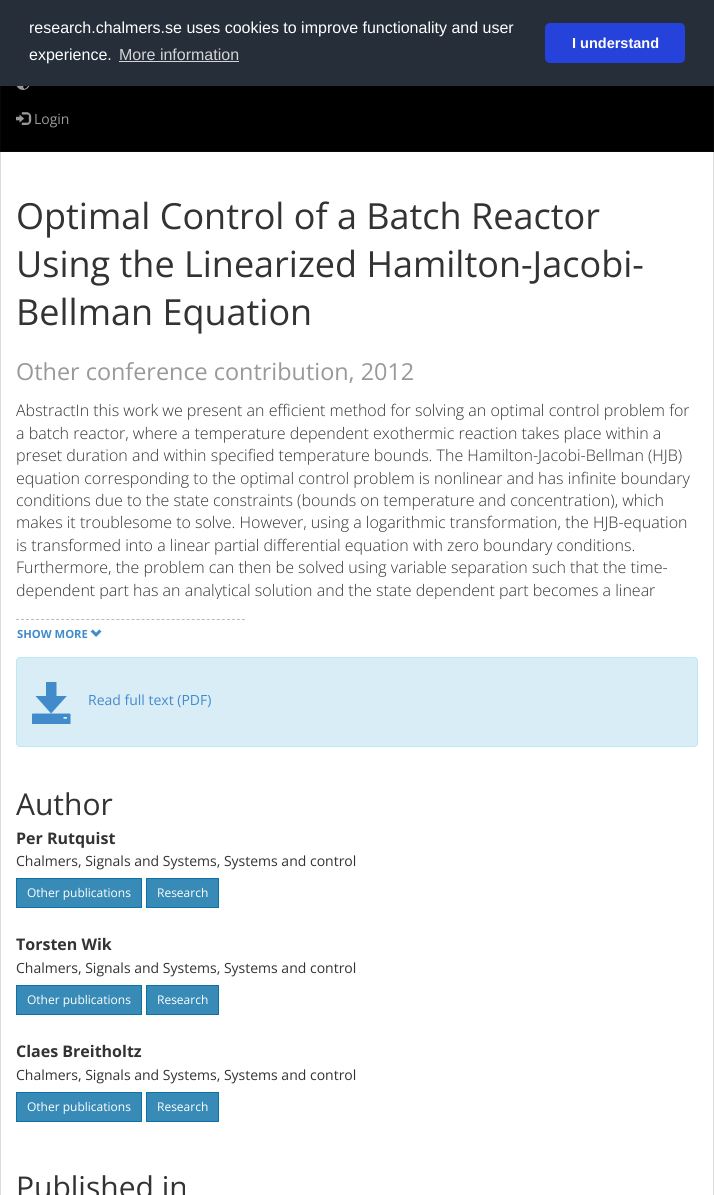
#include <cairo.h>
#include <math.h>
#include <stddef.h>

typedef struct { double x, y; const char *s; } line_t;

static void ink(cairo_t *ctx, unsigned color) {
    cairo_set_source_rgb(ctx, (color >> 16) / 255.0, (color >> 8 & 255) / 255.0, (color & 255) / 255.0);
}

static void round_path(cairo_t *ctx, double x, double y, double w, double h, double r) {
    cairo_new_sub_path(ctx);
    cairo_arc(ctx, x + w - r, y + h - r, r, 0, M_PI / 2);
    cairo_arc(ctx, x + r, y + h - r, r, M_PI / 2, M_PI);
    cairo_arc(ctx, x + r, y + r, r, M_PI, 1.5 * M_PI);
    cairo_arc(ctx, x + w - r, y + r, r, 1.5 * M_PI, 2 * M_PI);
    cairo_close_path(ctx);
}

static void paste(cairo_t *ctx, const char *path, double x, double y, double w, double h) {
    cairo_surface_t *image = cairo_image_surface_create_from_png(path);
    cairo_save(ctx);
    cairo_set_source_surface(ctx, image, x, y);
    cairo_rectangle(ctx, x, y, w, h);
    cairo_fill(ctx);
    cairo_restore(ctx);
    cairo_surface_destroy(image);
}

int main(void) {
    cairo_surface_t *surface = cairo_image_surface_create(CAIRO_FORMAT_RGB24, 714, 1195);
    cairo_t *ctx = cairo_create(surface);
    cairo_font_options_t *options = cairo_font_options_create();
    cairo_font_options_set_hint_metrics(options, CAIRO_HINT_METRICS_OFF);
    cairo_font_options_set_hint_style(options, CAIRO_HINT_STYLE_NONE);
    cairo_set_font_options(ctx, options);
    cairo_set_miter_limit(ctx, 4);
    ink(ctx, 0xFFFFFF);
    cairo_paint(ctx);
    ink(ctx, 0x000000);
    cairo_rectangle(ctx, 1, 86, 712, 65);
    cairo_fill(ctx);
    cairo_rectangle(ctx, 0.5, 0.5, 713, 151);
    ink(ctx, 0x080808);
    cairo_set_line_width(ctx, 1);
    cairo_stroke(ctx);
    ink(ctx, 0x252E39);
    cairo_rectangle(ctx, 0, 0, 714, 86);
    cairo_fill(ctx);
    cairo_select_font_face(ctx, "Liberation Sans", CAIRO_FONT_SLANT_NORMAL, CAIRO_FONT_WEIGHT_NORMAL);
    cairo_set_font_size(ctx, 16);
    ink(ctx, 0xFFFFFF);
    cairo_move_to(ctx, 29, 33);
    cairo_show_text(ctx, "research.chalmers.se uses cookies to improve functionality and user");
    cairo_move_to(ctx, 29, 60);
    cairo_show_text(ctx, "experience.");
    ink(ctx, 0xD3D5D7);
    cairo_move_to(ctx, 119, 60);
    cairo_show_text(ctx, "More information");
    cairo_rectangle(ctx, 119, 61, 120, 1);
    cairo_fill(ctx);
    ink(ctx, 0x2543DA);
    round_path(ctx, 545, 23, 140, 40, 5);
    cairo_fill(ctx);
    cairo_select_font_face(ctx, "Liberation Sans", CAIRO_FONT_SLANT_NORMAL, CAIRO_FONT_WEIGHT_BOLD);
    cairo_set_font_size(ctx, 14.5);
    ink(ctx, 0xFFFFFF);
    cairo_move_to(ctx, 572, 48);
    cairo_show_text(ctx, "I understand");
    paste(ctx, "media/1.png", 16, 86, 14, 4);
    paste(ctx, "media/2.png", 16, 112, 16, 13);
    cairo_select_font_face(ctx, "Open Sans", CAIRO_FONT_SLANT_NORMAL, CAIRO_FONT_WEIGHT_NORMAL);
    cairo_set_font_size(ctx, 14);
    ink(ctx, 0x999999);
    cairo_move_to(ctx, 34, 124);
    cairo_show_text(ctx, "Login");
    ink(ctx, 0xDCDCDC);
    cairo_rectangle(ctx, 713, 152, 1, 1043);
    cairo_fill(ctx);
    cairo_rectangle(ctx, 0, 152, 1, 1043);
    cairo_fill(ctx);
    cairo_set_font_size(ctx, 36);
    ink(ctx, 0x333333);
    {
        static const line_t items[] = {
            {16, 229, "Optimal Control of a Batch Reactor"},
            {16, 277, "Using the Linearized Hamilton-Jacobi-"},
            {16, 325, "Bellman Equation"},
        };
        for (size_t i = 0; i < sizeof items / sizeof *items; i++) {
            cairo_move_to(ctx, items[i].x, items[i].y);
            cairo_show_text(ctx, items[i].s);
        }
    }
    cairo_set_font_size(ctx, 23.4);
    ink(ctx, 0x999999);
    cairo_move_to(ctx, 16, 380);
    cairo_show_text(ctx, "Other conference contribution, 2012");
    cairo_select_font_face(ctx, "Open Sans Light", CAIRO_FONT_SLANT_NORMAL, CAIRO_FONT_WEIGHT_NORMAL);
    cairo_set_font_size(ctx, 16);
    ink(ctx, 0x333333);
    {
        static const line_t items[] = {
            {16, 416, "AbstractIn this work we present an efficient method for solving an optimal control problem for"},
            {16, 439, "a batch reactor, where a temperature dependent exothermic reaction takes place within a"},
            {16, 461, "preset duration and within specified temperature bounds. The Hamilton-Jacobi-Bellman (HJB)"},
            {16, 484, "equation corresponding to the optimal control problem is nonlinear and has infinite boundary"},
            {16, 506, "conditions due to the state constraints (bounds on temperature and concentration), which"},
            {16, 528, "makes it troublesome to solve. However, using a logarithmic transformation, the HJB-equation"},
            {16, 551, "is transformed into a linear partial differential equation with zero boundary conditions."},
            {16, 573, "Furthermore, the problem can then be solved using variable separation such that the time-"},
        };
        for (size_t i = 0; i < sizeof items / sizeof *items; i++) {
            cairo_move_to(ctx, items[i].x, items[i].y);
            cairo_show_text(ctx, items[i].s);
        }
    }
    cairo_save(ctx);
    cairo_rectangle(ctx, 16, 399, 682, 200);
    cairo_clip(ctx);
    cairo_move_to(ctx, 16, 596);
    cairo_show_text(ctx, "dependent part has an analytical solution and the state dependent part becomes a linear");
    cairo_restore(ctx);
    cairo_new_path(ctx);
    cairo_move_to(ctx, 16, 619.5);
    cairo_line_to(ctx, 245, 619.5);
    ink(ctx, 0xBBBBBB);
    cairo_set_dash(ctx, (double[]){3, 2.02}, 2, 0);
    cairo_stroke(ctx);
    cairo_select_font_face(ctx, "Open Sans", CAIRO_FONT_SLANT_NORMAL, CAIRO_FONT_WEIGHT_BOLD);
    cairo_set_font_size(ctx, 11.25);
    ink(ctx, 0x428BCA);
    cairo_move_to(ctx, 17, 638);
    cairo_show_text(ctx, "SHOW MORE");
    paste(ctx, "media/3.png", 90, 629, 12, 8);
    ink(ctx, 0xD9EDF7);
    round_path(ctx, 16.5, 657.5, 681, 89, 3.5);
    cairo_fill_preserve(ctx);
    ink(ctx, 0xBCE8F1);
    cairo_set_dash(ctx, NULL, 0, 0);
    cairo_stroke(ctx);
    paste(ctx, "media/4.png", 32, 682, 39, 42);
    cairo_select_font_face(ctx, "Open Sans", CAIRO_FONT_SLANT_NORMAL, CAIRO_FONT_WEIGHT_NORMAL);
    cairo_set_font_size(ctx, 14);
    ink(ctx, 0x428BCA);
    cairo_move_to(ctx, 88, 705);
    cairo_show_text(ctx, "Read full text (PDF)");
    cairo_set_font_size(ctx, 30);
    ink(ctx, 0x333333);
    cairo_move_to(ctx, 16, 815);
    cairo_show_text(ctx, "Author");
    cairo_select_font_face(ctx, "Open Sans", CAIRO_FONT_SLANT_NORMAL, CAIRO_FONT_WEIGHT_BOLD);
    cairo_set_font_size(ctx, 16);
    cairo_move_to(ctx, 16, 844);
    cairo_show_text(ctx, "Per Rutquist");
    cairo_select_font_face(ctx, "Open Sans", CAIRO_FONT_SLANT_NORMAL, CAIRO_FONT_WEIGHT_NORMAL);
    cairo_set_font_size(ctx, 14);
    cairo_move_to(ctx, 16, 866);
    cairo_show_text(ctx, "Chalmers, Signals and Systems, Systems and control");
    ink(ctx, 0x398BB7);
    cairo_rectangle(ctx, 16.5, 878.5, 125, 29);
    cairo_fill_preserve(ctx);
    ink(ctx, 0x0E72A7);
    cairo_stroke(ctx);
    cairo_set_font_size(ctx, 12);
    ink(ctx, 0xFFFFFF);
    cairo_move_to(ctx, 27, 897);
    cairo_show_text(ctx, "Other publications");
    ink(ctx, 0x398BB7);
    cairo_rectangle(ctx, 146.5, 878.5, 72, 29);
    cairo_fill_preserve(ctx);
    ink(ctx, 0x0E72A7);
    cairo_stroke(ctx);
    ink(ctx, 0xFFFFFF);
    cairo_move_to(ctx, 157, 897);
    cairo_show_text(ctx, "Research");
    cairo_select_font_face(ctx, "Open Sans", CAIRO_FONT_SLANT_NORMAL, CAIRO_FONT_WEIGHT_BOLD);
    cairo_set_font_size(ctx, 16);
    ink(ctx, 0x333333);
    cairo_move_to(ctx, 16, 950);
    cairo_show_text(ctx, "Torsten Wik");
    cairo_select_font_face(ctx, "Open Sans", CAIRO_FONT_SLANT_NORMAL, CAIRO_FONT_WEIGHT_NORMAL);
    cairo_set_font_size(ctx, 14);
    cairo_move_to(ctx, 16, 973);
    cairo_show_text(ctx, "Chalmers, Signals and Systems, Systems and control");
    ink(ctx, 0x398BB7);
    cairo_rectangle(ctx, 16.5, 985.5, 125, 29);
    cairo_fill_preserve(ctx);
    ink(ctx, 0x0E72A7);
    cairo_stroke(ctx);
    cairo_set_font_size(ctx, 12);
    ink(ctx, 0xFFFFFF);
    cairo_move_to(ctx, 27, 1004);
    cairo_show_text(ctx, "Other publications");
    ink(ctx, 0x398BB7);
    cairo_rectangle(ctx, 146.5, 985.5, 72, 29);
    cairo_fill_preserve(ctx);
    ink(ctx, 0x0E72A7);
    cairo_stroke(ctx);
    ink(ctx, 0xFFFFFF);
    cairo_move_to(ctx, 157, 1004);
    cairo_show_text(ctx, "Research");
    cairo_select_font_face(ctx, "Open Sans", CAIRO_FONT_SLANT_NORMAL, CAIRO_FONT_WEIGHT_BOLD);
    cairo_set_font_size(ctx, 16);
    ink(ctx, 0x333333);
    cairo_move_to(ctx, 16, 1057);
    cairo_show_text(ctx, "Claes Breitholtz");
    cairo_select_font_face(ctx, "Open Sans", CAIRO_FONT_SLANT_NORMAL, CAIRO_FONT_WEIGHT_NORMAL);
    cairo_set_font_size(ctx, 14);
    cairo_move_to(ctx, 16, 1080);
    cairo_show_text(ctx, "Chalmers, Signals and Systems, Systems and control");
    ink(ctx, 0x398BB7);
    cairo_rectangle(ctx, 16.5, 1092.5, 125, 29);
    cairo_fill_preserve(ctx);
    ink(ctx, 0x0E72A7);
    cairo_stroke(ctx);
    cairo_set_font_size(ctx, 12);
    ink(ctx, 0xFFFFFF);
    cairo_move_to(ctx, 27, 1111);
    cairo_show_text(ctx, "Other publications");
    ink(ctx, 0x398BB7);
    cairo_rectangle(ctx, 146.5, 1092.5, 72, 29);
    cairo_fill_preserve(ctx);
    ink(ctx, 0x0E72A7);
    cairo_stroke(ctx);
    ink(ctx, 0xFFFFFF);
    cairo_move_to(ctx, 157, 1111);
    cairo_show_text(ctx, "Research");
    cairo_set_font_size(ctx, 30);
    ink(ctx, 0x333333);
    cairo_move_to(ctx, 16, 1198);
    cairo_show_text(ctx, "Published in");
    cairo_surface_write_to_png(surface, "image.png");
    cairo_font_options_destroy(options);
    cairo_destroy(ctx);
    cairo_surface_destroy(surface);
    return 0;
}
